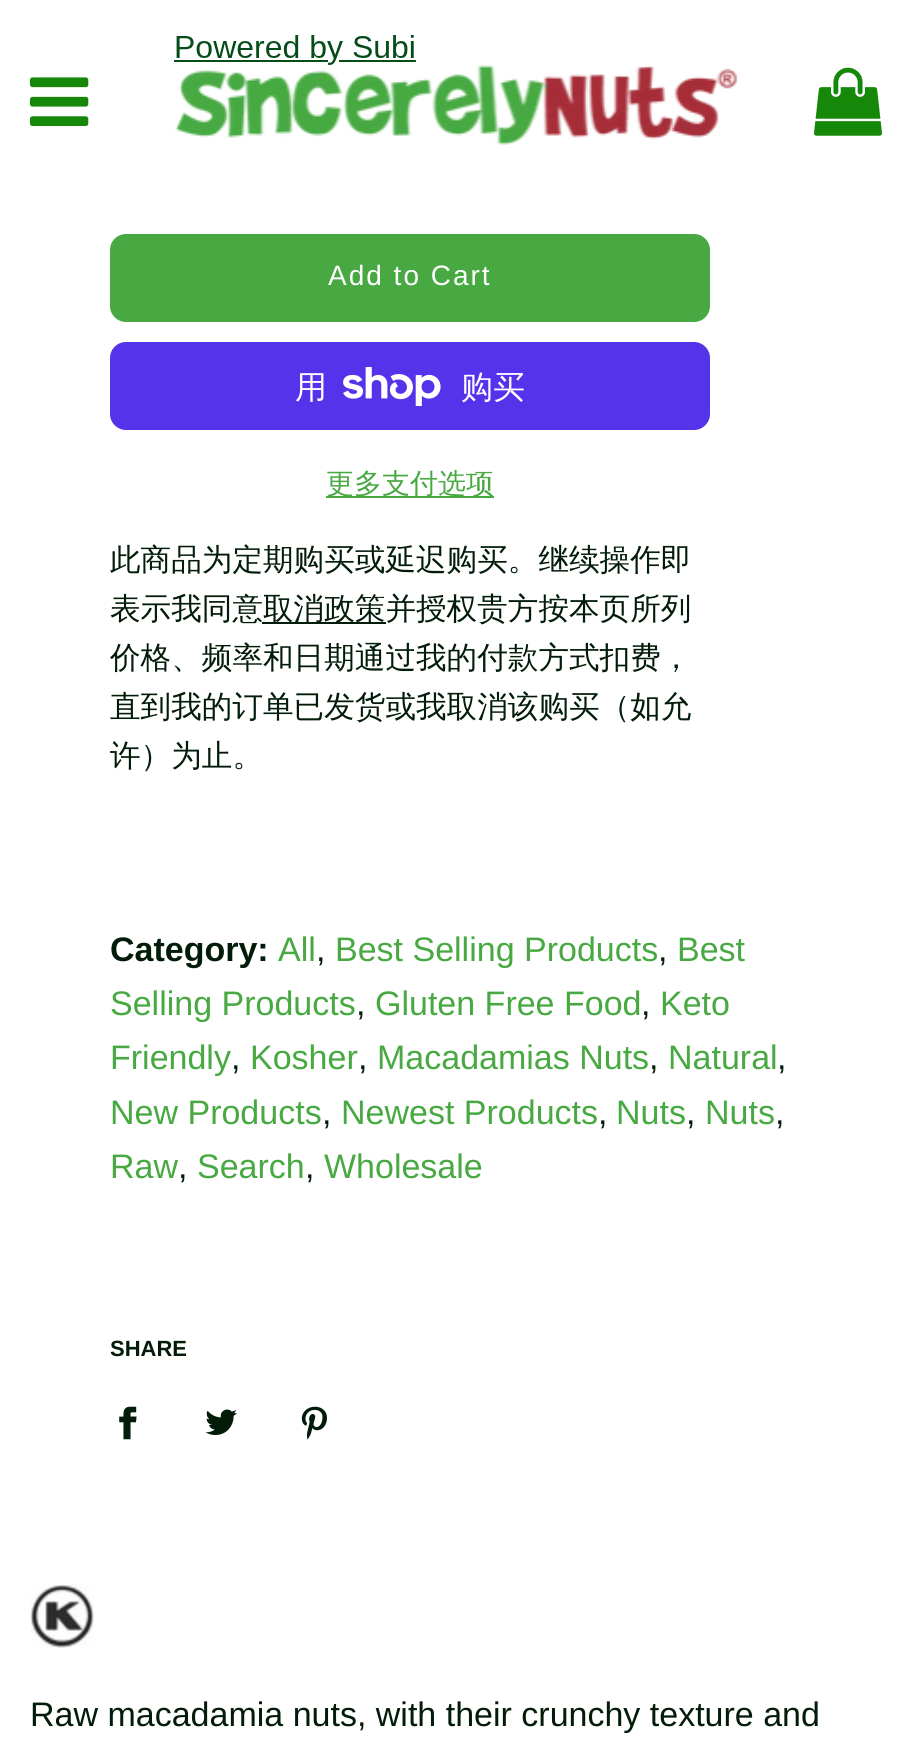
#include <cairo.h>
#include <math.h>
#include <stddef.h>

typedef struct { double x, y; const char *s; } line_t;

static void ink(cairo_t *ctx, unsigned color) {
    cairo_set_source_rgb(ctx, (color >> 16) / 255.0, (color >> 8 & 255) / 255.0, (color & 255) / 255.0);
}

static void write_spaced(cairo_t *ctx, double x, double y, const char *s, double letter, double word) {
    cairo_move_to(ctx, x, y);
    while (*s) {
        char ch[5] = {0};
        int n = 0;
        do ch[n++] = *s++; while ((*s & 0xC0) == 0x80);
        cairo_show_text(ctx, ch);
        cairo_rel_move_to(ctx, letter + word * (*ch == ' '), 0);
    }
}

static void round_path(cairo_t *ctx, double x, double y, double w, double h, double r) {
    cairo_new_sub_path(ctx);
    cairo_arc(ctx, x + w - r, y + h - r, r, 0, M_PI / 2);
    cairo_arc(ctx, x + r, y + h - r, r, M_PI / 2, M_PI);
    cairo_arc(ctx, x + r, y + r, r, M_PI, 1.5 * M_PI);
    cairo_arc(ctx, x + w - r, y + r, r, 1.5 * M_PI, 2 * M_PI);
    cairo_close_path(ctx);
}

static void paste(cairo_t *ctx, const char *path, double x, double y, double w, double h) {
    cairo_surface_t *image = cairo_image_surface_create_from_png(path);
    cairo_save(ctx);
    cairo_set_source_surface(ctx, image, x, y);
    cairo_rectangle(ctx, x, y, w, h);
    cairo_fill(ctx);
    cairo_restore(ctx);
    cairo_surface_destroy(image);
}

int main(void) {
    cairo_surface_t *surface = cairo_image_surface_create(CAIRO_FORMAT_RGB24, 912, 1761);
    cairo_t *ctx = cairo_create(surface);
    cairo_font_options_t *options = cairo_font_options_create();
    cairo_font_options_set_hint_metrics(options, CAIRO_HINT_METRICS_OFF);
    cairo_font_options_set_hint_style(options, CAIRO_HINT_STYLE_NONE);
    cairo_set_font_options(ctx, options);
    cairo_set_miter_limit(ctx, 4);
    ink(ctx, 0xFFFFFF);
    cairo_paint(ctx);
    paste(ctx, "media/1.png", 30, 77, 59, 49);
    paste(ctx, "media/2.png", 174, 35, 564, 110);
    paste(ctx, "media/3.png", 814, 67, 68, 69);
    ink(ctx, 0x48A942);
    round_path(ctx, 110, 234, 600, 88, 16);
    cairo_fill(ctx);
    cairo_select_font_face(ctx, "Liberation Sans", CAIRO_FONT_SLANT_NORMAL, CAIRO_FONT_WEIGHT_NORMAL);
    cairo_set_font_size(ctx, 28);
    ink(ctx, 0xFFFFFF);
    write_spaced(ctx, 328, 285, "Add to Cart", 2, 0);
    ink(ctx, 0x5433EB);
    round_path(ctx, 110, 342, 600, 88, 16);
    cairo_fill(ctx);
    cairo_select_font_face(ctx, "WenQuanYi Zen Hei Medium", CAIRO_FONT_SLANT_NORMAL, CAIRO_FONT_WEIGHT_NORMAL);
    cairo_set_font_size(ctx, 32);
    ink(ctx, 0xFFFFFF);
    cairo_move_to(ctx, 295, 398);
    cairo_show_text(ctx, "用");
    paste(ctx, "media/4.png", 343, 367, 98, 39);
    cairo_move_to(ctx, 461, 398);
    cairo_show_text(ctx, "购买");
    ink(ctx, 0x48A942);
    cairo_rectangle(ctx, 326, 496, 168, 2);
    cairo_fill(ctx);
    cairo_set_font_size(ctx, 28);
    cairo_move_to(ctx, 326, 493);
    cairo_show_text(ctx, "更多支付选项");
    cairo_set_font_size(ctx, 30.6);
    ink(ctx, 0x021C09);
    cairo_move_to(ctx, 110, 570);
    cairo_show_text(ctx, "此商品为定期购买或延迟购买。继续操作即");
    cairo_move_to(ctx, 110, 619);
    cairo_show_text(ctx, "表示我同意");
    cairo_rectangle(ctx, 262, 622, 124, 2);
    cairo_fill(ctx);
    {
        static const line_t items[] = {
            {263, 619, "取消政策并授权贵方按本页所列"},
            {110, 668, "价格、频率和日期通过我的付款方式扣费，"},
            {110, 717, "直到我的订单已发货或我取消该购买（如允"},
            {110, 766, "许）为止。"},
        };
        for (size_t i = 0; i < sizeof items / sizeof *items; i++) {
            cairo_move_to(ctx, items[i].x, items[i].y);
            cairo_show_text(ctx, items[i].s);
        }
    }
    cairo_select_font_face(ctx, "Liberation Sans", CAIRO_FONT_SLANT_NORMAL, CAIRO_FONT_WEIGHT_BOLD);
    cairo_set_font_size(ctx, 34);
    cairo_move_to(ctx, 110, 961);
    cairo_show_text(ctx, "Category:");
    cairo_select_font_face(ctx, "Liberation Sans", CAIRO_FONT_SLANT_NORMAL, CAIRO_FONT_WEIGHT_NORMAL);
    ink(ctx, 0x48A942);
    cairo_move_to(ctx, 278, 961);
    cairo_show_text(ctx, "All");
    ink(ctx, 0x021C09);
    cairo_move_to(ctx, 316, 961);
    cairo_show_text(ctx, ",");
    ink(ctx, 0x48A942);
    cairo_move_to(ctx, 335, 961);
    cairo_show_text(ctx, "Best Selling Products");
    ink(ctx, 0x021C09);
    cairo_move_to(ctx, 658, 961);
    cairo_show_text(ctx, ",");
    ink(ctx, 0x48A942);
    cairo_move_to(ctx, 677, 961);
    cairo_show_text(ctx, "Best");
    cairo_move_to(ctx, 110, 1015);
    cairo_show_text(ctx, "Selling Products");
    ink(ctx, 0x021C09);
    cairo_move_to(ctx, 356, 1015);
    cairo_show_text(ctx, ",");
    ink(ctx, 0x48A942);
    cairo_move_to(ctx, 375, 1015);
    cairo_show_text(ctx, "Gluten Free Food");
    ink(ctx, 0x021C09);
    cairo_move_to(ctx, 641, 1015);
    cairo_show_text(ctx, ",");
    ink(ctx, 0x48A942);
    cairo_move_to(ctx, 660, 1015);
    cairo_show_text(ctx, "Keto");
    cairo_move_to(ctx, 110, 1069);
    cairo_show_text(ctx, "Friendly");
    ink(ctx, 0x021C09);
    cairo_move_to(ctx, 231, 1069);
    cairo_show_text(ctx, ",");
    ink(ctx, 0x48A942);
    cairo_move_to(ctx, 250, 1069);
    cairo_show_text(ctx, "Kosher");
    ink(ctx, 0x021C09);
    cairo_move_to(ctx, 358, 1069);
    cairo_show_text(ctx, ",");
    ink(ctx, 0x48A942);
    cairo_move_to(ctx, 377, 1069);
    cairo_show_text(ctx, "Macadamias Nuts");
    ink(ctx, 0x021C09);
    cairo_move_to(ctx, 649, 1069);
    cairo_show_text(ctx, ",");
    ink(ctx, 0x48A942);
    cairo_move_to(ctx, 668, 1069);
    cairo_show_text(ctx, "Natural");
    ink(ctx, 0x021C09);
    cairo_move_to(ctx, 777, 1069);
    cairo_show_text(ctx, ",");
    ink(ctx, 0x48A942);
    cairo_move_to(ctx, 110, 1124);
    cairo_show_text(ctx, "New Products");
    ink(ctx, 0x021C09);
    cairo_move_to(ctx, 322, 1124);
    cairo_show_text(ctx, ",");
    ink(ctx, 0x48A942);
    cairo_move_to(ctx, 341, 1124);
    cairo_show_text(ctx, "Newest Products");
    ink(ctx, 0x021C09);
    cairo_move_to(ctx, 598, 1124);
    cairo_show_text(ctx, ",");
    ink(ctx, 0x48A942);
    cairo_move_to(ctx, 616, 1124);
    cairo_show_text(ctx, "Nuts");
    ink(ctx, 0x021C09);
    cairo_move_to(ctx, 686, 1124);
    cairo_show_text(ctx, ",");
    ink(ctx, 0x48A942);
    cairo_move_to(ctx, 705, 1124);
    cairo_show_text(ctx, "Nuts");
    ink(ctx, 0x021C09);
    cairo_move_to(ctx, 775, 1124);
    cairo_show_text(ctx, ",");
    ink(ctx, 0x48A942);
    cairo_move_to(ctx, 110, 1178);
    cairo_show_text(ctx, "Raw");
    ink(ctx, 0x021C09);
    cairo_move_to(ctx, 178, 1178);
    cairo_show_text(ctx, ",");
    ink(ctx, 0x48A942);
    cairo_move_to(ctx, 197, 1178);
    cairo_show_text(ctx, "Search");
    ink(ctx, 0x021C09);
    cairo_move_to(ctx, 305, 1178);
    cairo_show_text(ctx, ",");
    ink(ctx, 0x48A942);
    cairo_move_to(ctx, 324, 1178);
    cairo_show_text(ctx, "Wholesale");
    cairo_select_font_face(ctx, "Liberation Sans", CAIRO_FONT_SLANT_NORMAL, CAIRO_FONT_WEIGHT_BOLD);
    cairo_set_font_size(ctx, 22);
    ink(ctx, 0x021C09);
    cairo_move_to(ctx, 110, 1356);
    cairo_show_text(ctx, "SHARE");
    paste(ctx, "media/5.png", 119, 1406, 18, 34);
    paste(ctx, "media/6.png", 205, 1409, 32, 26);
    paste(ctx, "media/7.png", 301, 1406, 26, 34);
    paste(ctx, "media/8.png", 30, 1584, 64, 64);
    cairo_select_font_face(ctx, "Liberation Sans", CAIRO_FONT_SLANT_NORMAL, CAIRO_FONT_WEIGHT_NORMAL);
    cairo_set_font_size(ctx, 34);
    cairo_move_to(ctx, 30, 1726);
    cairo_show_text(ctx, "Raw macadamia nuts, with their crunchy texture and");
    cairo_surface_write_to_png(surface, "image.png");
    cairo_font_options_destroy(options);
    cairo_destroy(ctx);
    cairo_surface_destroy(surface);
    return 0;
}
